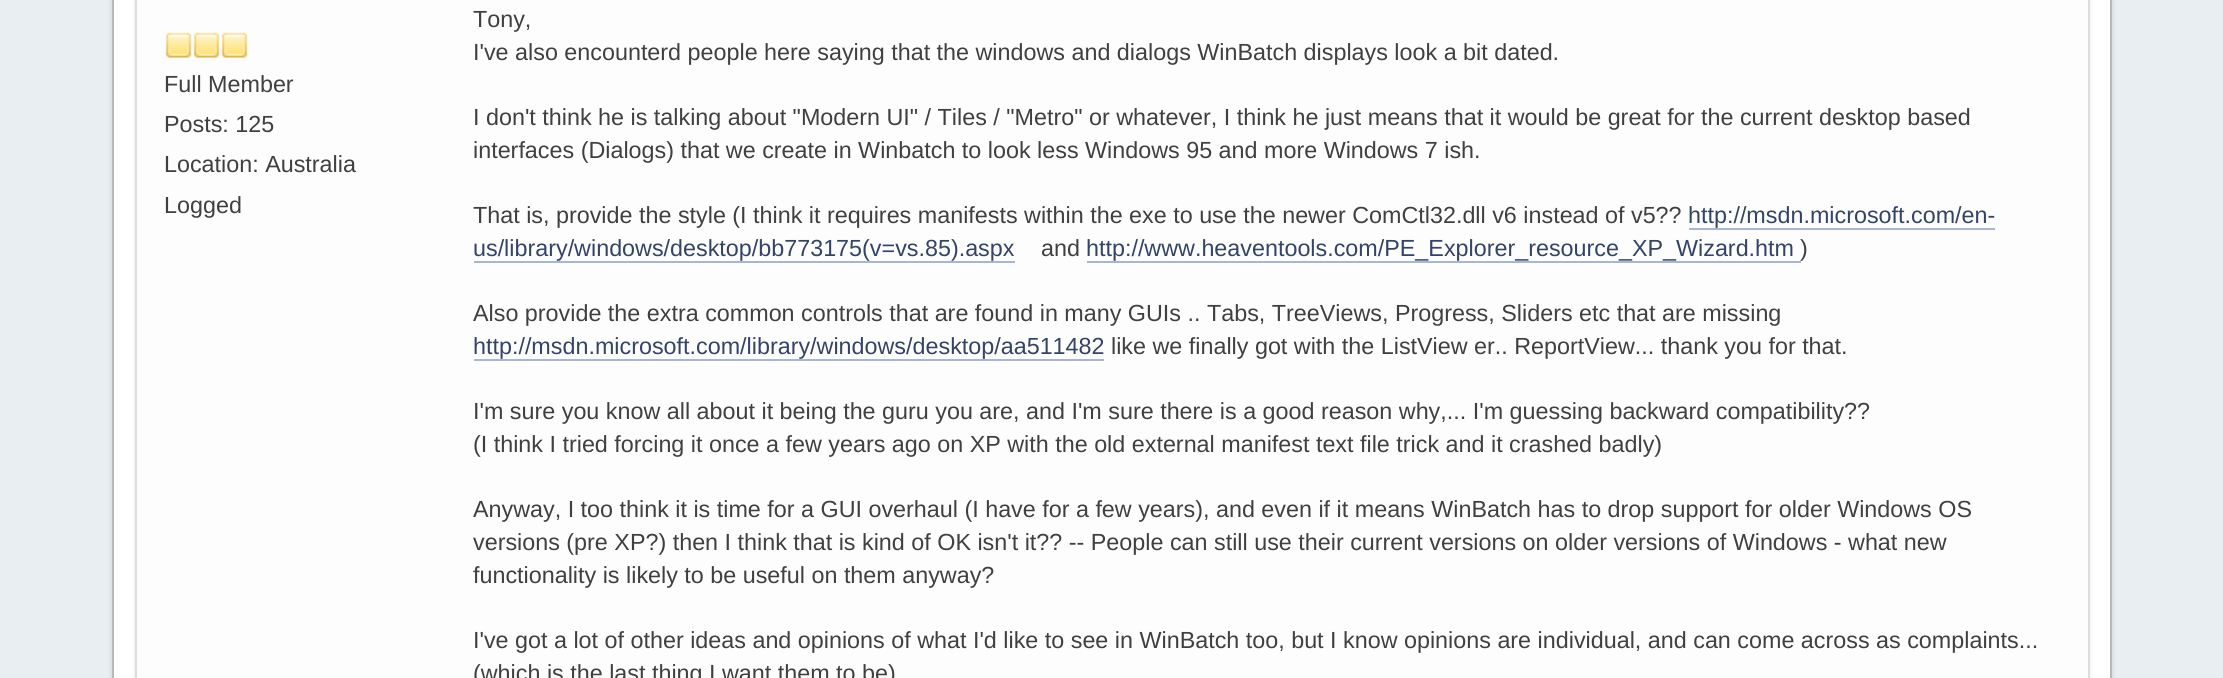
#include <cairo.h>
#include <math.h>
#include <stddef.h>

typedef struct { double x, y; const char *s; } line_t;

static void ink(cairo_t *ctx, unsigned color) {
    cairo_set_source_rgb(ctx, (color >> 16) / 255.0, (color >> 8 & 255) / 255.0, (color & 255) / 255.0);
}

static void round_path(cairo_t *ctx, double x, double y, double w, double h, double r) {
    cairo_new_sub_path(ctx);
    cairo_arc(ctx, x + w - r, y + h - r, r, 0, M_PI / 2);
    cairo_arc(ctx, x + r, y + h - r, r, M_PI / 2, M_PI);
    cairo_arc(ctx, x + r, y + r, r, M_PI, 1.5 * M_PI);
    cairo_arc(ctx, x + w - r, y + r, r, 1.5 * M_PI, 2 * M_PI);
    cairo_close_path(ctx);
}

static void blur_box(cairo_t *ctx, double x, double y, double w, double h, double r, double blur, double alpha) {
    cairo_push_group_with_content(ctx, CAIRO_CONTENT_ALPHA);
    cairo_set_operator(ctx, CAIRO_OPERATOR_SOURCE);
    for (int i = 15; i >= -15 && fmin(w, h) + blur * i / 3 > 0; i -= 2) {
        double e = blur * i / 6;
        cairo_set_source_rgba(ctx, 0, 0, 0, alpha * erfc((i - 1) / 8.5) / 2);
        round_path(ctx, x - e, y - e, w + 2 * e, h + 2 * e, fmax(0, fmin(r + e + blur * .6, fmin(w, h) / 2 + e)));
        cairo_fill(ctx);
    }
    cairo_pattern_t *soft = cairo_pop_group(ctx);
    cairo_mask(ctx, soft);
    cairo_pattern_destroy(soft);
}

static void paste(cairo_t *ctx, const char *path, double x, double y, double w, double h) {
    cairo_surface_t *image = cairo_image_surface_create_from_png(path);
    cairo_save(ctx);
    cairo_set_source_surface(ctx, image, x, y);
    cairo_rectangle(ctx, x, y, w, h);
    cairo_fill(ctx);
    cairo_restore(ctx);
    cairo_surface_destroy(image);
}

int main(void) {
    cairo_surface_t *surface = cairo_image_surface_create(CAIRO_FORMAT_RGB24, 2223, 678);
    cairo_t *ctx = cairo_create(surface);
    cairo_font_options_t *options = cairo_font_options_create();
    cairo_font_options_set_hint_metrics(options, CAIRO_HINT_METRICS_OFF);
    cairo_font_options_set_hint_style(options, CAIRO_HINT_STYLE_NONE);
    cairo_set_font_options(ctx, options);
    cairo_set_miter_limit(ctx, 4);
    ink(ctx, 0xE9EEF2);
    cairo_paint(ctx);
    ink(ctx, 0x000000);
    blur_box(ctx, 112, -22, 2000, 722, 14, 2.5, 0.14);
    ink(ctx, 0xFFFFFF);
    cairo_rectangle(ctx, 113, -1, 1998, 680);
    cairo_fill_preserve(ctx);
    ink(ctx, 0xB8B8B8);
    cairo_stroke(ctx);
    ink(ctx, 0x000000);
    blur_box(ctx, 135, -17, 1955, 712, 11, 2, 0.1);
    ink(ctx, 0xFDFDFD);
    cairo_rectangle(ctx, 136, -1, 1953, 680);
    cairo_fill_preserve(ctx);
    ink(ctx, 0xDDDDDD);
    cairo_stroke(ctx);
    paste(ctx, "media/1.png", 165, 32, 27, 26);
    paste(ctx, "media/1.png", 193, 32, 27, 26);
    paste(ctx, "media/1.png", 221, 32, 27, 26);
    cairo_select_font_face(ctx, "Liberation Sans", CAIRO_FONT_SLANT_NORMAL, CAIRO_FONT_WEIGHT_NORMAL);
    cairo_set_font_size(ctx, 23.33);
    ink(ctx, 0x404040);
    {
        static const line_t items[] = {
            {164, 92, "Full Member"},
            {164, 132, "Posts: 125"},
            {164, 172, "Location: Australia"},
            {164, 213, "Logged"},
            {473, 27, "Tony,"},
            {473, 60, "I've also encounterd people here saying that the windows and dialogs WinBatch displays look a bit dated."},
            {473, 125, "I don't think he is talking about \"Modern UI\" / Tiles / \"Metro\" or whatever, I think he just means that it would be great for the current desktop based"},
            {473, 158, "interfaces (Dialogs) that we create in Winbatch to look less Windows 95 and more Windows 7 ish."},
            {473, 223, "That is, provide the style (I think it requires manifests within the exe to use the newer ComCtl32.dll v6 instead of v5?\077"},
        };
        for (size_t i = 0; i < sizeof items / sizeof *items; i++) {
            cairo_move_to(ctx, items[i].x, items[i].y);
            cairo_show_text(ctx, items[i].s);
        }
    }
    ink(ctx, 0x334466);
    cairo_move_to(ctx, 1688, 223);
    cairo_show_text(ctx, "http://msdn.microsoft.com/en-");
    ink(ctx, 0xA8B6CF);
    cairo_rectangle(ctx, 1689, 228, 306, 2);
    cairo_fill(ctx);
    ink(ctx, 0x334466);
    cairo_move_to(ctx, 473, 256);
    cairo_show_text(ctx, "us/library/windows/desktop/bb773175(v=vs.85).aspx");
    ink(ctx, 0xA8B6CF);
    cairo_rectangle(ctx, 474, 261, 541, 2);
    cairo_fill(ctx);
    ink(ctx, 0x404040);
    cairo_move_to(ctx, 1041, 256);
    cairo_show_text(ctx, "and");
    ink(ctx, 0x334466);
    cairo_move_to(ctx, 1086, 256);
    cairo_show_text(ctx, "http://www.heaventools.com/PE_Explorer_resource_XP_Wizard.htm");
    ink(ctx, 0xA8B6CF);
    cairo_rectangle(ctx, 1087, 261, 714, 2);
    cairo_fill(ctx);
    ink(ctx, 0x404040);
    cairo_move_to(ctx, 1800, 256);
    cairo_show_text(ctx, ")");
    cairo_move_to(ctx, 473, 321);
    cairo_show_text(ctx, "Also provide the extra common controls that are found in many GUIs .. Tabs, TreeViews, Progress, Sliders etc that are missing");
    ink(ctx, 0x334466);
    cairo_move_to(ctx, 473, 354);
    cairo_show_text(ctx, "http://msdn.microsoft.com/library/windows/desktop/aa511482");
    ink(ctx, 0xA8B6CF);
    cairo_rectangle(ctx, 474, 359, 630, 2);
    cairo_fill(ctx);
    ink(ctx, 0x404040);
    {
        static const line_t items[] = {
            {1111, 354, "like we finally got with the ListView er.. ReportView... thank you for that."},
            {473, 419, "I'm sure you know all about it being the guru you are, and I'm sure there is a good reason why,... I'm guessing backward compatibility?\077"},
            {473, 452, "(I think I tried forcing it once a few years ago on XP with the old external manifest text file trick and it crashed badly)"},
            {473, 517, "Anyway, I too think it is time for a GUI overhaul (I have for a few years), and even if it means WinBatch has to drop support for older Windows OS"},
            {473, 550, "versions (pre XP?) then I think that is kind of OK isn't it?\077 -- People can still use their current versions on older versions of Windows - what new"},
            {473, 583, "functionality is likely to be useful on them anyway?"},
            {473, 648, "I've got a lot of other ideas and opinions of what I'd like to see in WinBatch too, but I know opinions are individual, and can come across as complaints..."},
            {473, 681, "(which is the last thing I want them to be)"},
        };
        for (size_t i = 0; i < sizeof items / sizeof *items; i++) {
            cairo_move_to(ctx, items[i].x, items[i].y);
            cairo_show_text(ctx, items[i].s);
        }
    }
    cairo_surface_write_to_png(surface, "image.png");
    cairo_font_options_destroy(options);
    cairo_destroy(ctx);
    cairo_surface_destroy(surface);
    return 0;
}
